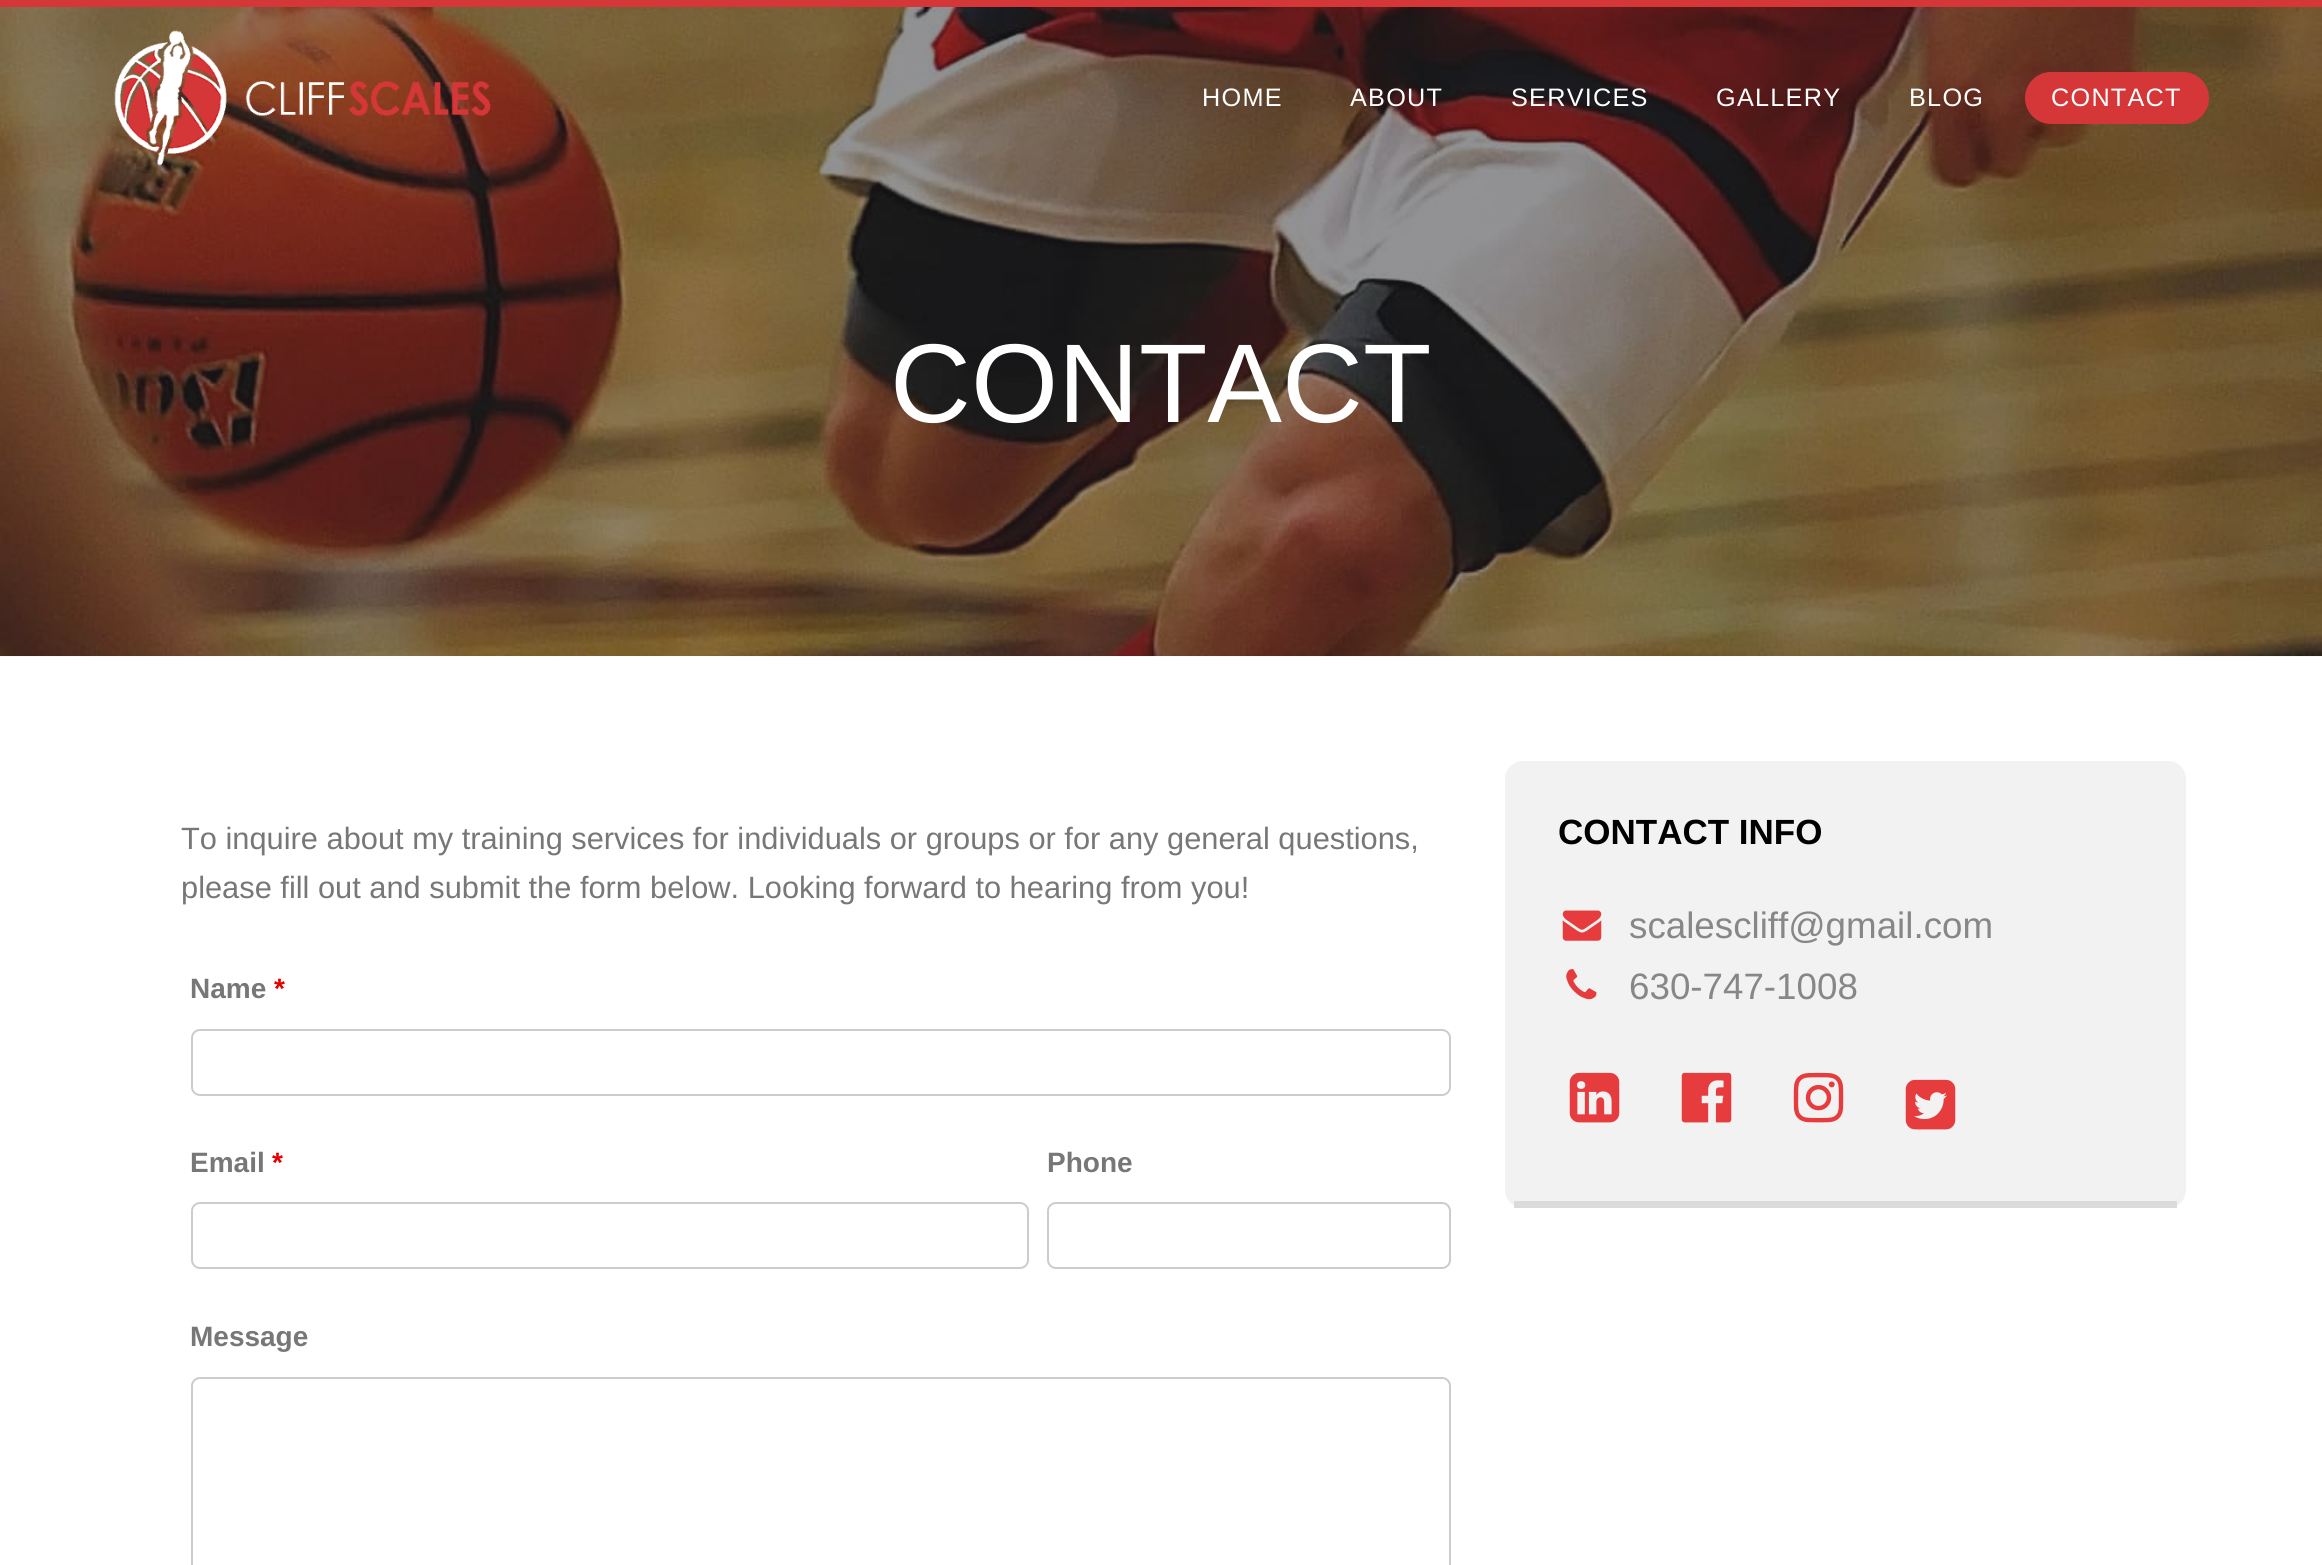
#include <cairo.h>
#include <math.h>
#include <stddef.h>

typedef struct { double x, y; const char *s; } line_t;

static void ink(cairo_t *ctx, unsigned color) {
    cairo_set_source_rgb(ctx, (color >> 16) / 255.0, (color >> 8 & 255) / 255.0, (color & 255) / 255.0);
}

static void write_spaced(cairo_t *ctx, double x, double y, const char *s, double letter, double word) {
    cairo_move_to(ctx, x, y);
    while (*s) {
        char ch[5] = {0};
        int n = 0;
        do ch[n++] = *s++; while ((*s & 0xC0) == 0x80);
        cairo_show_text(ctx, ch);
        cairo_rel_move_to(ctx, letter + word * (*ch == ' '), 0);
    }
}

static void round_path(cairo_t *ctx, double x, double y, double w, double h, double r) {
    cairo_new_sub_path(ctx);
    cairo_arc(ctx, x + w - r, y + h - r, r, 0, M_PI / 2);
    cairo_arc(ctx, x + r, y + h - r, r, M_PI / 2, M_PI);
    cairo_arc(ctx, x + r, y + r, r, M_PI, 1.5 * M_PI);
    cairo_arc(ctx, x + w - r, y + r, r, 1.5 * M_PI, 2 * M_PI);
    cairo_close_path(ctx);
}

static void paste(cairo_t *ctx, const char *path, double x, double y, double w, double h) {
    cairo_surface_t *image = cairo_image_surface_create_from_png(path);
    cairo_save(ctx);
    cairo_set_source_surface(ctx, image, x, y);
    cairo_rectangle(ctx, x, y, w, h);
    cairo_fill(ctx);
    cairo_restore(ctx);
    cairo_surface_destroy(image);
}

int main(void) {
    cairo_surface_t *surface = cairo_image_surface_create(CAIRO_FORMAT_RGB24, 2322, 1565);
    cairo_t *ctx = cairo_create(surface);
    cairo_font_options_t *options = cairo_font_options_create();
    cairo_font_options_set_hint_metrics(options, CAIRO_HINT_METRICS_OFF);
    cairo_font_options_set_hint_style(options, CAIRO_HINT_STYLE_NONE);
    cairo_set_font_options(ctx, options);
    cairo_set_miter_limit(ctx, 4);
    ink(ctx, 0xFFFFFF);
    cairo_paint(ctx);
    ink(ctx, 0xD53739);
    cairo_rectangle(ctx, 0, 0, 2322, 7);
    cairo_fill(ctx);
    ink(ctx, 0x242429);
    cairo_rectangle(ctx, 0, 7, 2322, 649);
    cairo_fill(ctx);
    paste(ctx, "media/2.png", 0, 7, 2322, 650);
    paste(ctx, "media/1.png", 114, 30, 377, 136);
    cairo_select_font_face(ctx, "Liberation Sans", CAIRO_FONT_SLANT_NORMAL, CAIRO_FONT_WEIGHT_NORMAL);
    cairo_set_font_size(ctx, 25.25);
    ink(ctx, 0xFFFFFF);
    {
        static const line_t items[] = {
            {1202, 106, "HOME"},
            {1350, 106, "ABOUT"},
            {1511, 106, "SERVICES"},
            {1716, 106, "GALLERY"},
            {1909, 106, "BLOG"},
        };
        for (size_t i = 0; i < sizeof items / sizeof *items; i++) {
            write_spaced(ctx, items[i].x, items[i].y, items[i].s, 1.25, 0);
        }
    }
    ink(ctx, 0xD53739);
    round_path(ctx, 2025, 72, 184, 52, 26);
    cairo_fill(ctx);
    ink(ctx, 0xFFFFFF);
    write_spaced(ctx, 2051, 106, "CONTACT", 1.25, 0);
    cairo_set_font_size(ctx, 112);
    cairo_move_to(ctx, 890, 422);
    cairo_show_text(ctx, "CONTACT");
    cairo_set_font_size(ctx, 30.8);
    ink(ctx, 0x777777);
    cairo_move_to(ctx, 181, 849);
    cairo_show_text(ctx, "To inquire about my training services for individuals or groups or for any general questions,");
    cairo_move_to(ctx, 181, 898);
    cairo_show_text(ctx, "please fill out and submit the form below. Looking forward to hearing from you!");
    cairo_select_font_face(ctx, "Liberation Sans", CAIRO_FONT_SLANT_NORMAL, CAIRO_FONT_WEIGHT_BOLD);
    cairo_set_font_size(ctx, 28);
    cairo_move_to(ctx, 190, 998);
    cairo_show_text(ctx, "Name");
    ink(ctx, 0xE80000);
    cairo_move_to(ctx, 274, 998);
    cairo_show_text(ctx, "*");
    round_path(ctx, 192, 1030, 1258, 65, 8);
    ink(ctx, 0xCCCCCC);
    cairo_stroke(ctx);
    ink(ctx, 0x777777);
    cairo_move_to(ctx, 190, 1172);
    cairo_show_text(ctx, "Email");
    ink(ctx, 0xE80000);
    cairo_move_to(ctx, 272, 1172);
    cairo_show_text(ctx, "*");
    round_path(ctx, 192, 1203, 836, 65, 8);
    ink(ctx, 0xCCCCCC);
    cairo_stroke(ctx);
    ink(ctx, 0x777777);
    cairo_move_to(ctx, 1047, 1172);
    cairo_show_text(ctx, "Phone");
    round_path(ctx, 1048, 1203, 402, 65, 8);
    ink(ctx, 0xCCCCCC);
    cairo_stroke(ctx);
    ink(ctx, 0x777777);
    cairo_move_to(ctx, 190, 1346);
    cairo_show_text(ctx, "Message");
    round_path(ctx, 192, 1378, 1258, 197, 8);
    ink(ctx, 0xCCCCCC);
    cairo_stroke(ctx);
    ink(ctx, 0xF2F2F2);
    round_path(ctx, 1505, 761, 681, 447, 18);
    cairo_fill(ctx);
    ink(ctx, 0xDBDBDB);
    cairo_rectangle(ctx, 1514, 1201, 663, 7);
    cairo_fill(ctx);
    cairo_set_font_size(ctx, 35);
    ink(ctx, 0x000000);
    cairo_move_to(ctx, 1558, 844);
    cairo_show_text(ctx, "CONTACT INFO");
    paste(ctx, "media/3.png", 1562, 910, 40, 31);
    cairo_select_font_face(ctx, "Liberation Sans", CAIRO_FONT_SLANT_NORMAL, CAIRO_FONT_WEIGHT_NORMAL);
    cairo_set_font_size(ctx, 36.75);
    ink(ctx, 0x878787);
    cairo_move_to(ctx, 1629, 938);
    cairo_show_text(ctx, "scalescliff@gmail.com");
    paste(ctx, "media/4.png", 1566, 969, 31, 31);
    cairo_move_to(ctx, 1629, 999);
    cairo_show_text(ctx, "630-747-1008");
    paste(ctx, "media/5.png", 1569, 1072, 51, 51);
    paste(ctx, "media/6.png", 1681, 1072, 51, 51);
    paste(ctx, "media/7.png", 1793, 1072, 51, 51);
    paste(ctx, "media/8.png", 1905, 1079, 51, 51);
    cairo_surface_write_to_png(surface, "image.png");
    cairo_font_options_destroy(options);
    cairo_destroy(ctx);
    cairo_surface_destroy(surface);
    return 0;
}
